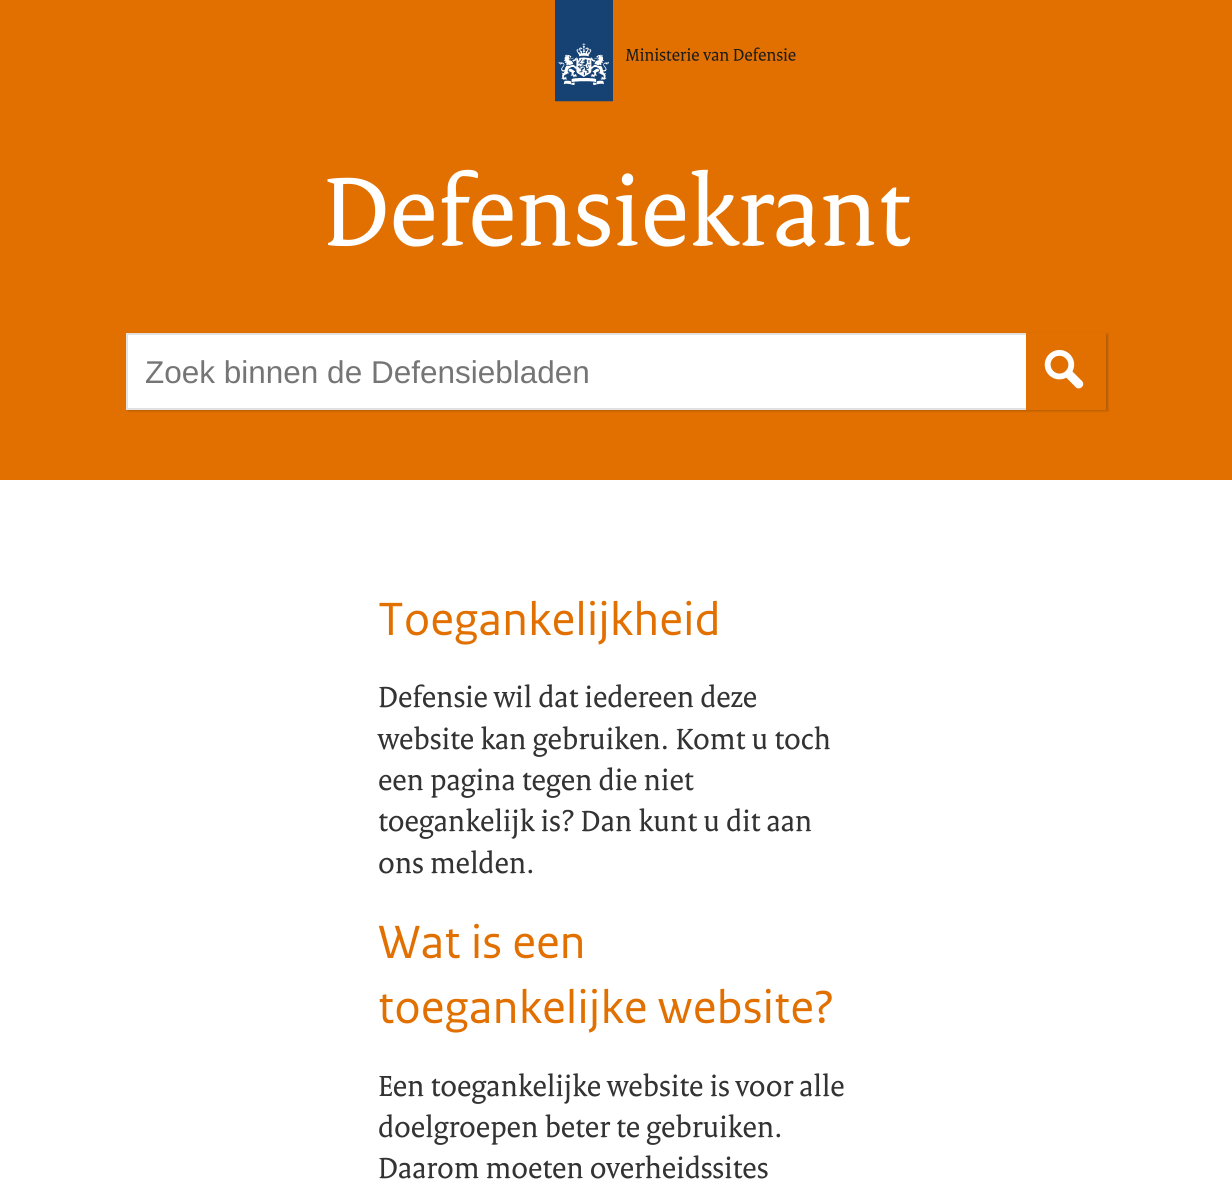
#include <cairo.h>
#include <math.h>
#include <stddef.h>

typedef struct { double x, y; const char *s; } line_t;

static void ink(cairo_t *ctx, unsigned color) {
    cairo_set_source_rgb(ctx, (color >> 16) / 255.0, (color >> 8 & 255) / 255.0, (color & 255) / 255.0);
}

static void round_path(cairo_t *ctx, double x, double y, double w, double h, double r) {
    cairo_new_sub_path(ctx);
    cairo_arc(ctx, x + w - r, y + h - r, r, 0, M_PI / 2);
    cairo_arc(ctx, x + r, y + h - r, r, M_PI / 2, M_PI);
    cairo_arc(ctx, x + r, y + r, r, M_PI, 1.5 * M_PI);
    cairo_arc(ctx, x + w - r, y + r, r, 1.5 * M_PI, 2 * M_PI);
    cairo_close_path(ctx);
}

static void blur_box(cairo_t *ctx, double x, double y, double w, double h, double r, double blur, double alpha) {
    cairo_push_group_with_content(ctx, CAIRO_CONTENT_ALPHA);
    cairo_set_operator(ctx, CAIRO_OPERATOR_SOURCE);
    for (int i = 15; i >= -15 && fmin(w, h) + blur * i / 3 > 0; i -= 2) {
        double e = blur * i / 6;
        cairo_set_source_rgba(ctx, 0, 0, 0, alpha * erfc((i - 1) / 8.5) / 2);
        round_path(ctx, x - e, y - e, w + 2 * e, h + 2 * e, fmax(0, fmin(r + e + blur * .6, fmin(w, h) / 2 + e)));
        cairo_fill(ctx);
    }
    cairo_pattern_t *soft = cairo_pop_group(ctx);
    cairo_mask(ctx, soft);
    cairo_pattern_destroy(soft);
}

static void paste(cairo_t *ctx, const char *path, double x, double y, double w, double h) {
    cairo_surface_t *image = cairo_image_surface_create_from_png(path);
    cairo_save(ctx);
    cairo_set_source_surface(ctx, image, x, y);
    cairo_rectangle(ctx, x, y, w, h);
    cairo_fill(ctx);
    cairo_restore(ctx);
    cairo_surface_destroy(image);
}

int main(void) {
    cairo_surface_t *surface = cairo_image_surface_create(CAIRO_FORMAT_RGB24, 1232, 1203);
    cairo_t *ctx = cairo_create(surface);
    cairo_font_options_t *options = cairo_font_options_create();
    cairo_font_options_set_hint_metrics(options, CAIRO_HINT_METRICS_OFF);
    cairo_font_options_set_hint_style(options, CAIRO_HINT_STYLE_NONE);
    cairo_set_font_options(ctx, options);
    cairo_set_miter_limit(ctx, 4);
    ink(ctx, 0xFFFFFF);
    cairo_paint(ctx);
    ink(ctx, 0xE17000);
    cairo_rectangle(ctx, 0, 0, 1232, 480);
    cairo_fill(ctx);
    paste(ctx, "media/1.png", 555, 0, 241, 102);
    cairo_select_font_face(ctx, "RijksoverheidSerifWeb", CAIRO_FONT_SLANT_NORMAL, CAIRO_FONT_WEIGHT_NORMAL);
    cairo_set_font_size(ctx, 104.75);
    ink(ctx, 0xFFFFFF);
    cairo_move_to(ctx, 323, 245);
    cairo_show_text(ctx, "Defensiekrant");
    ink(ctx, 0x000000);
    blur_box(ctx, 128, 334, 980, 77, 0, 1, 0.2);
    ink(ctx, 0xFFFFFF);
    cairo_rectangle(ctx, 128, 335, 898, 73);
    cairo_fill(ctx);
    cairo_rectangle(ctx, 127, 334, 978, 75);
    ink(ctx, 0xE1E1E1);
    cairo_stroke(ctx);
    cairo_select_font_face(ctx, "Liberation Sans", CAIRO_FONT_SLANT_NORMAL, CAIRO_FONT_WEIGHT_NORMAL);
    cairo_set_font_size(ctx, 31.5);
    ink(ctx, 0x757575);
    cairo_move_to(ctx, 145, 383);
    cairo_show_text(ctx, "Zoek binnen de Defensiebladen");
    ink(ctx, 0xE17000);
    cairo_rectangle(ctx, 1026, 333, 80, 77);
    cairo_fill(ctx);
    paste(ctx, "media/2.png", 1044, 350, 40, 39);
    cairo_select_font_face(ctx, "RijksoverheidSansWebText", CAIRO_FONT_SLANT_NORMAL, CAIRO_FONT_WEIGHT_NORMAL);
    cairo_set_font_size(ctx, 49);
    cairo_move_to(ctx, 378, 635);
    cairo_show_text(ctx, "Toegankelijkheid");
    cairo_select_font_face(ctx, "RijksoverheidSerifWeb", CAIRO_FONT_SLANT_NORMAL, CAIRO_FONT_WEIGHT_NORMAL);
    cairo_set_font_size(ctx, 31.5);
    ink(ctx, 0x333333);
    {
        static const line_t items[] = {
            {378, 707, "Defensie wil dat iedereen deze"},
            {378, 749, "website kan gebruiken. Komt u toch"},
            {378, 790, "een pagina tegen die niet"},
            {378, 831, "toegankelijk is? Dan kunt u dit aan"},
            {378, 873, "ons melden."},
        };
        for (size_t i = 0; i < sizeof items / sizeof *items; i++) {
            cairo_move_to(ctx, items[i].x, items[i].y);
            cairo_show_text(ctx, items[i].s);
        }
    }
    cairo_select_font_face(ctx, "RijksoverheidSansWebText", CAIRO_FONT_SLANT_NORMAL, CAIRO_FONT_WEIGHT_NORMAL);
    cairo_set_font_size(ctx, 49);
    ink(ctx, 0xE17000);
    cairo_move_to(ctx, 378, 958);
    cairo_show_text(ctx, "Wat is een");
    cairo_move_to(ctx, 378, 1023);
    cairo_show_text(ctx, "toegankelijke website?");
    cairo_select_font_face(ctx, "RijksoverheidSerifWeb", CAIRO_FONT_SLANT_NORMAL, CAIRO_FONT_WEIGHT_NORMAL);
    cairo_set_font_size(ctx, 31.5);
    ink(ctx, 0x333333);
    {
        static const line_t items[] = {
            {378, 1096, "Een toegankelijke website is voor alle"},
            {378, 1137, "doelgroepen beter te gebruiken."},
            {378, 1178, "Daarom moeten overheidssites"},
        };
        for (size_t i = 0; i < sizeof items / sizeof *items; i++) {
            cairo_move_to(ctx, items[i].x, items[i].y);
            cairo_show_text(ctx, items[i].s);
        }
    }
    cairo_surface_write_to_png(surface, "image.png");
    cairo_font_options_destroy(options);
    cairo_destroy(ctx);
    cairo_surface_destroy(surface);
    return 0;
}
